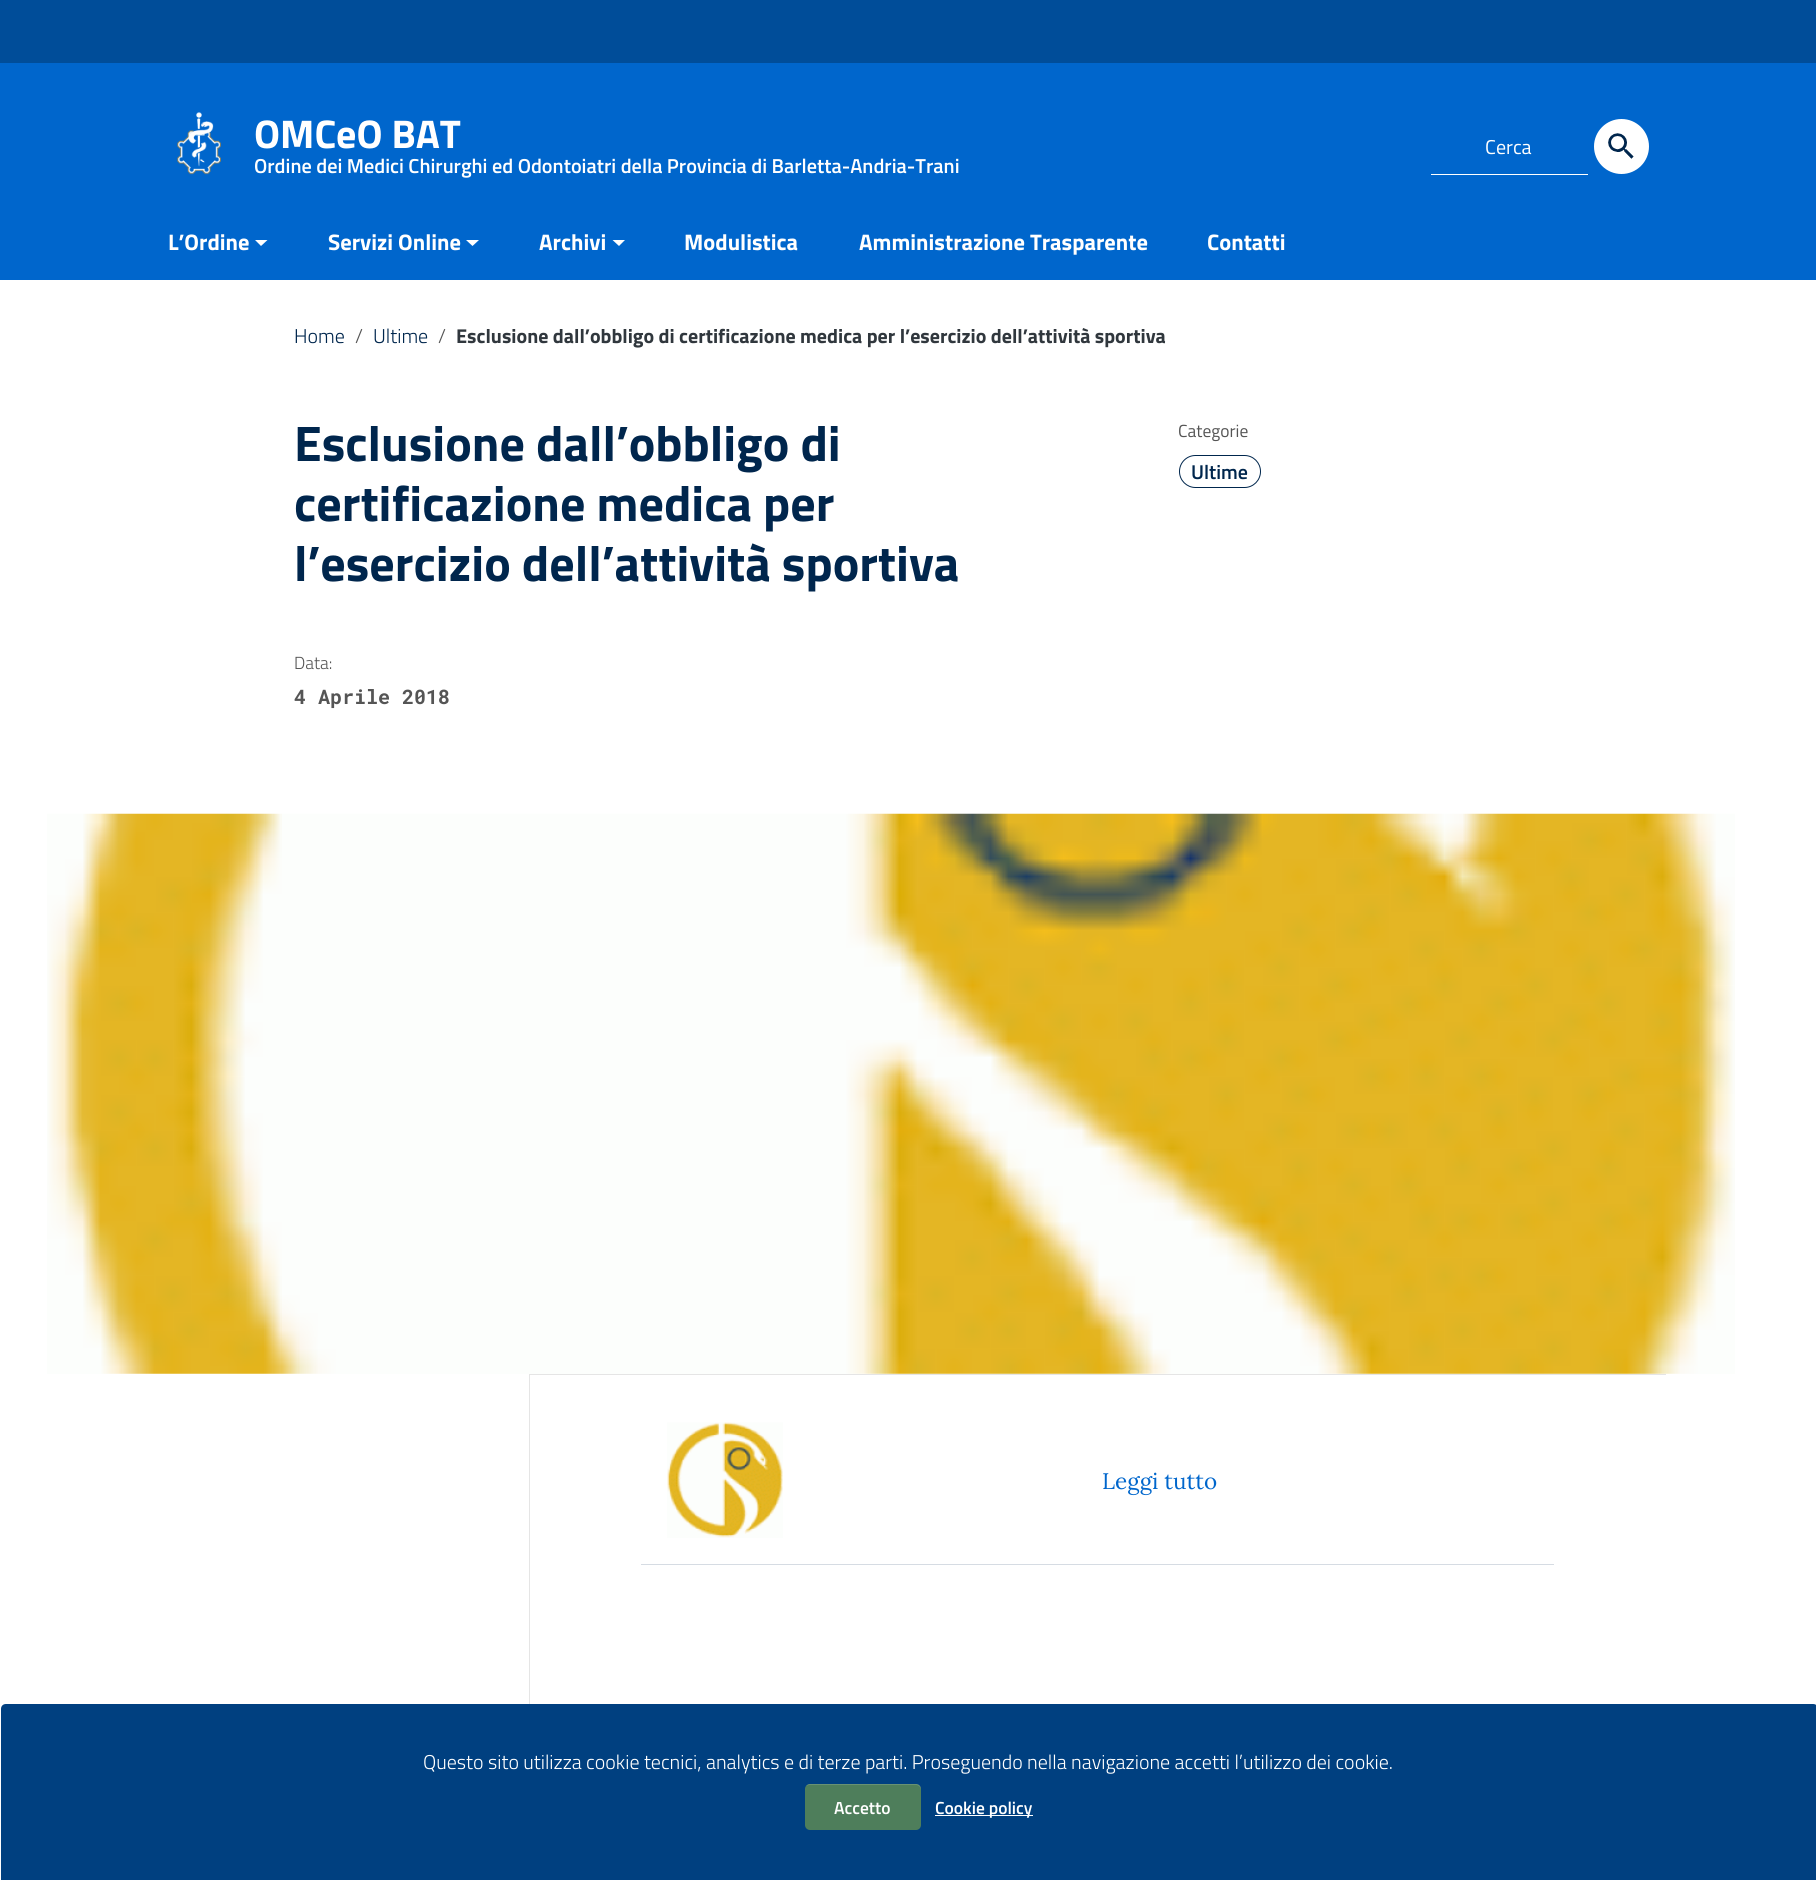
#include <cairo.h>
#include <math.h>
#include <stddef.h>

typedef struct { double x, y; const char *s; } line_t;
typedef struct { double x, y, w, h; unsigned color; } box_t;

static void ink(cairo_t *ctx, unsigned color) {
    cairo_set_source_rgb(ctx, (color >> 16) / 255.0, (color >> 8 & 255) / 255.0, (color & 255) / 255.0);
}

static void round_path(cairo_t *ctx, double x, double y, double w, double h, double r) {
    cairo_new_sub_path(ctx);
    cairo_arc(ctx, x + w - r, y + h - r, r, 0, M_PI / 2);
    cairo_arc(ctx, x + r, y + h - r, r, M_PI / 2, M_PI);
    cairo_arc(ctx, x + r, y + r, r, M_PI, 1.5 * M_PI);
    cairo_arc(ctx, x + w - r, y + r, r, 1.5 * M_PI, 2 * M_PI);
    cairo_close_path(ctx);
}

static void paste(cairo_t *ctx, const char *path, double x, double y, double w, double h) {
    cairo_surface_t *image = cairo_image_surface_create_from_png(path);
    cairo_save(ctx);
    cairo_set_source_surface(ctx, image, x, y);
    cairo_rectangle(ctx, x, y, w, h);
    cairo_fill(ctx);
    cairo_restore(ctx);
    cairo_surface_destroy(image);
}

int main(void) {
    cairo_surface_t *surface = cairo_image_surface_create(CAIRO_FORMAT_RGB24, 1816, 1880);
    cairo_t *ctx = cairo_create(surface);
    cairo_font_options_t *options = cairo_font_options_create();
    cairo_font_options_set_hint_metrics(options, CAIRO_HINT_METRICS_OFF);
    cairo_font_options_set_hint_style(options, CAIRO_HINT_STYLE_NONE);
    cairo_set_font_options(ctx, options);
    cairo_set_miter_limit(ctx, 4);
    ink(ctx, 0xFFFFFF);
    cairo_paint(ctx);
    ink(ctx, 0x0066CC);
    cairo_rectangle(ctx, 0, 63, 1816, 217);
    cairo_fill(ctx);
    ink(ctx, 0x004D99);
    cairo_rectangle(ctx, 0, 0, 1816, 63);
    cairo_fill(ctx);
    paste(ctx, "media/1.png", 177, 112, 44, 63);
    cairo_select_font_face(ctx, "Titillium Web", CAIRO_FONT_SLANT_NORMAL, CAIRO_FONT_WEIGHT_BOLD);
    cairo_set_font_size(ctx, 40);
    ink(ctx, 0xFFFFFF);
    cairo_move_to(ctx, 254, 148);
    cairo_show_text(ctx, "OMCeO BAT");
    cairo_select_font_face(ctx, "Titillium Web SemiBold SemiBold", CAIRO_FONT_SLANT_NORMAL, CAIRO_FONT_WEIGHT_NORMAL);
    cairo_set_font_size(ctx, 20.25);
    cairo_move_to(ctx, 254, 173);
    cairo_show_text(ctx, "Ordine dei Medici Chirurghi ed Odontoiatri della Provincia di Barletta-Andria-Trani");
    cairo_rectangle(ctx, 1431, 174, 157, 1);
    cairo_fill(ctx);
    cairo_select_font_face(ctx, "Titillium Web", CAIRO_FONT_SLANT_NORMAL, CAIRO_FONT_WEIGHT_NORMAL);
    cairo_set_font_size(ctx, 20);
    cairo_move_to(ctx, 1485, 154);
    cairo_show_text(ctx, "Cerca");
    cairo_new_path(ctx);
    cairo_arc(ctx, 1621.5, 146.5, 27.5, 0, 2 * M_PI);
    cairo_fill(ctx);
    paste(ctx, "media/2.png", 1608, 133, 26, 26);
    cairo_select_font_face(ctx, "Titillium Web", CAIRO_FONT_SLANT_NORMAL, CAIRO_FONT_WEIGHT_BOLD);
    cairo_set_font_size(ctx, 22.5);
    cairo_move_to(ctx, 168, 250);
    cairo_show_text(ctx, "L’Ordine");
    cairo_new_path(ctx);
    cairo_move_to(ctx, 255, 240);
    cairo_line_to(ctx, 267.5, 240);
    cairo_line_to(ctx, 261, 246);
    cairo_close_path(ctx);
    cairo_fill(ctx);
    cairo_move_to(ctx, 328, 250);
    cairo_show_text(ctx, "Servizi Online");
    cairo_new_path(ctx);
    cairo_move_to(ctx, 466, 240);
    cairo_line_to(ctx, 479, 240);
    cairo_line_to(ctx, 472.5, 246);
    cairo_close_path(ctx);
    cairo_fill(ctx);
    cairo_move_to(ctx, 539, 250);
    cairo_show_text(ctx, "Archivi");
    cairo_new_path(ctx);
    cairo_move_to(ctx, 612.5, 240);
    cairo_line_to(ctx, 625, 240);
    cairo_line_to(ctx, 619, 246);
    cairo_close_path(ctx);
    cairo_fill(ctx);
    {
        static const line_t items[] = {
            {684, 250, "Modulistica"},
            {859, 250, "Amministrazione Trasparente"},
            {1207, 250, "Contatti"},
        };
        for (size_t i = 0; i < sizeof items / sizeof *items; i++) {
            cairo_move_to(ctx, items[i].x, items[i].y);
            cairo_show_text(ctx, items[i].s);
        }
    }
    cairo_select_font_face(ctx, "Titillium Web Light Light", CAIRO_FONT_SLANT_NORMAL, CAIRO_FONT_WEIGHT_NORMAL);
    cairo_set_font_size(ctx, 20);
    ink(ctx, 0x00264D);
    cairo_move_to(ctx, 294, 343);
    cairo_show_text(ctx, "Home");
    ink(ctx, 0x555555);
    cairo_move_to(ctx, 355, 343);
    cairo_show_text(ctx, "/");
    ink(ctx, 0x00264D);
    cairo_move_to(ctx, 373, 343);
    cairo_show_text(ctx, "Ultime");
    ink(ctx, 0x555555);
    cairo_move_to(ctx, 438, 343);
    cairo_show_text(ctx, "/");
    cairo_select_font_face(ctx, "Titillium Web", CAIRO_FONT_SLANT_NORMAL, CAIRO_FONT_WEIGHT_BOLD);
    ink(ctx, 0x30373D);
    cairo_move_to(ctx, 456, 343);
    cairo_show_text(ctx, "Esclusione dall’obbligo di certificazione medica per l’esercizio dell’attività sportiva");
    cairo_set_font_size(ctx, 50);
    ink(ctx, 0x00264D);
    {
        static const line_t items[] = {
            {294, 461, "Esclusione dall’obbligo di"},
            {294, 521, "certificazione medica per"},
            {294, 581, "l’esercizio dell’attività sportiva"},
        };
        for (size_t i = 0; i < sizeof items / sizeof *items; i++) {
            cairo_move_to(ctx, items[i].x, items[i].y);
            cairo_show_text(ctx, items[i].s);
        }
    }
    cairo_select_font_face(ctx, "Titillium Web", CAIRO_FONT_SLANT_NORMAL, CAIRO_FONT_WEIGHT_NORMAL);
    cairo_set_font_size(ctx, 17.5);
    ink(ctx, 0x555555);
    cairo_move_to(ctx, 1178, 437);
    cairo_show_text(ctx, "Categorie");
    round_path(ctx, 1179.5, 455.5, 81, 32, 16);
    ink(ctx, 0x00264D);
    cairo_set_line_width(ctx, 1);
    cairo_stroke(ctx);
    cairo_select_font_face(ctx, "Titillium Web SemiBold SemiBold", CAIRO_FONT_SLANT_NORMAL, CAIRO_FONT_WEIGHT_NORMAL);
    cairo_set_font_size(ctx, 20);
    cairo_move_to(ctx, 1191, 479);
    cairo_show_text(ctx, "Ultime");
    cairo_select_font_face(ctx, "Titillium Web Light Light", CAIRO_FONT_SLANT_NORMAL, CAIRO_FONT_WEIGHT_NORMAL);
    cairo_set_font_size(ctx, 17.5);
    ink(ctx, 0x555555);
    cairo_move_to(ctx, 294, 669);
    cairo_show_text(ctx, "Data:");
    cairo_select_font_face(ctx, "Roboto Mono", CAIRO_FONT_SLANT_NORMAL, CAIRO_FONT_WEIGHT_BOLD);
    cairo_set_font_size(ctx, 20);
    cairo_move_to(ctx, 294, 704);
    cairo_show_text(ctx, "4 Aprile 2018");
    paste(ctx, "media/3.png", 47, 813, 1688, 561);
    {
        static const box_t items[] = {
            {529, 1374, 1, 330, 0xE5E5E5},
            {530, 1374, 1136, 1, 0xE5E5E5},
            {641, 1564, 913, 1, 0xD6DCE3},
        };
        for (size_t i = 0; i < sizeof items / sizeof *items; i++) {
            ink(ctx, items[i].color);
            cairo_rectangle(ctx, items[i].x, items[i].y, items[i].w, items[i].h);
            cairo_fill(ctx);
        }
    }
    paste(ctx, "media/4.png", 667, 1422, 116, 116);
    cairo_select_font_face(ctx, "Lora", CAIRO_FONT_SLANT_NORMAL, CAIRO_FONT_WEIGHT_NORMAL);
    cairo_set_font_size(ctx, 22.5);
    ink(ctx, 0x0066CC);
    cairo_move_to(ctx, 1102, 1489);
    cairo_show_text(ctx, "Leggi tutto");
    ink(ctx, 0x004080);
    cairo_new_path(ctx);
    cairo_move_to(ctx, 6, 1704);
    cairo_line_to(ctx, 1813, 1704);
    cairo_curve_to(ctx, 1816, 1704, 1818, 1706, 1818, 1709);
    cairo_line_to(ctx, 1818, 1880);
    cairo_line_to(ctx, 1, 1880);
    cairo_line_to(ctx, 1, 1709);
    cairo_curve_to(ctx, 1, 1706, 3, 1704, 6, 1704);
    cairo_close_path(ctx);
    cairo_fill(ctx);
    cairo_select_font_face(ctx, "Titillium Web Light Light", CAIRO_FONT_SLANT_NORMAL, CAIRO_FONT_WEIGHT_NORMAL);
    cairo_set_font_size(ctx, 20);
    ink(ctx, 0xFFFFFF);
    cairo_move_to(ctx, 423, 1769);
    cairo_show_text(ctx, "Questo sito utilizza cookie tecnici, analytics e di terze parti. Proseguendo nella navigazione accetti l’utilizzo dei cookie.");
    ink(ctx, 0x4E7E5B);
    round_path(ctx, 805, 1784, 116, 46, 5);
    cairo_fill(ctx);
    cairo_set_source_rgba(ctx, 1, 1, 1, 0.15);
    cairo_new_path(ctx);
    cairo_move_to(ctx, 809, 1785);
    cairo_line_to(ctx, 916, 1785);
    cairo_curve_to(ctx, 918, 1785, 921, 1787, 921, 1790);
    cairo_line_to(ctx, 921, 1789);
    cairo_curve_to(ctx, 921, 1786, 919, 1784, 916, 1784);
    cairo_line_to(ctx, 810, 1784);
    cairo_curve_to(ctx, 808, 1784, 807, 1785, 806, 1786);
    cairo_close_path(ctx);
    cairo_fill(ctx);
    cairo_select_font_face(ctx, "Titillium Web SemiBold SemiBold", CAIRO_FONT_SLANT_NORMAL, CAIRO_FONT_WEIGHT_NORMAL);
    cairo_set_font_size(ctx, 17.5);
    ink(ctx, 0xFFFFFF);
    cairo_move_to(ctx, 834, 1814);
    cairo_show_text(ctx, "Accetto");
    cairo_rectangle(ctx, 935, 1815, 98, 1);
    cairo_fill(ctx);
    cairo_move_to(ctx, 935, 1814);
    cairo_show_text(ctx, "Cookie policy");
    cairo_surface_write_to_png(surface, "image.png");
    cairo_font_options_destroy(options);
    cairo_destroy(ctx);
    cairo_surface_destroy(surface);
    return 0;
}
